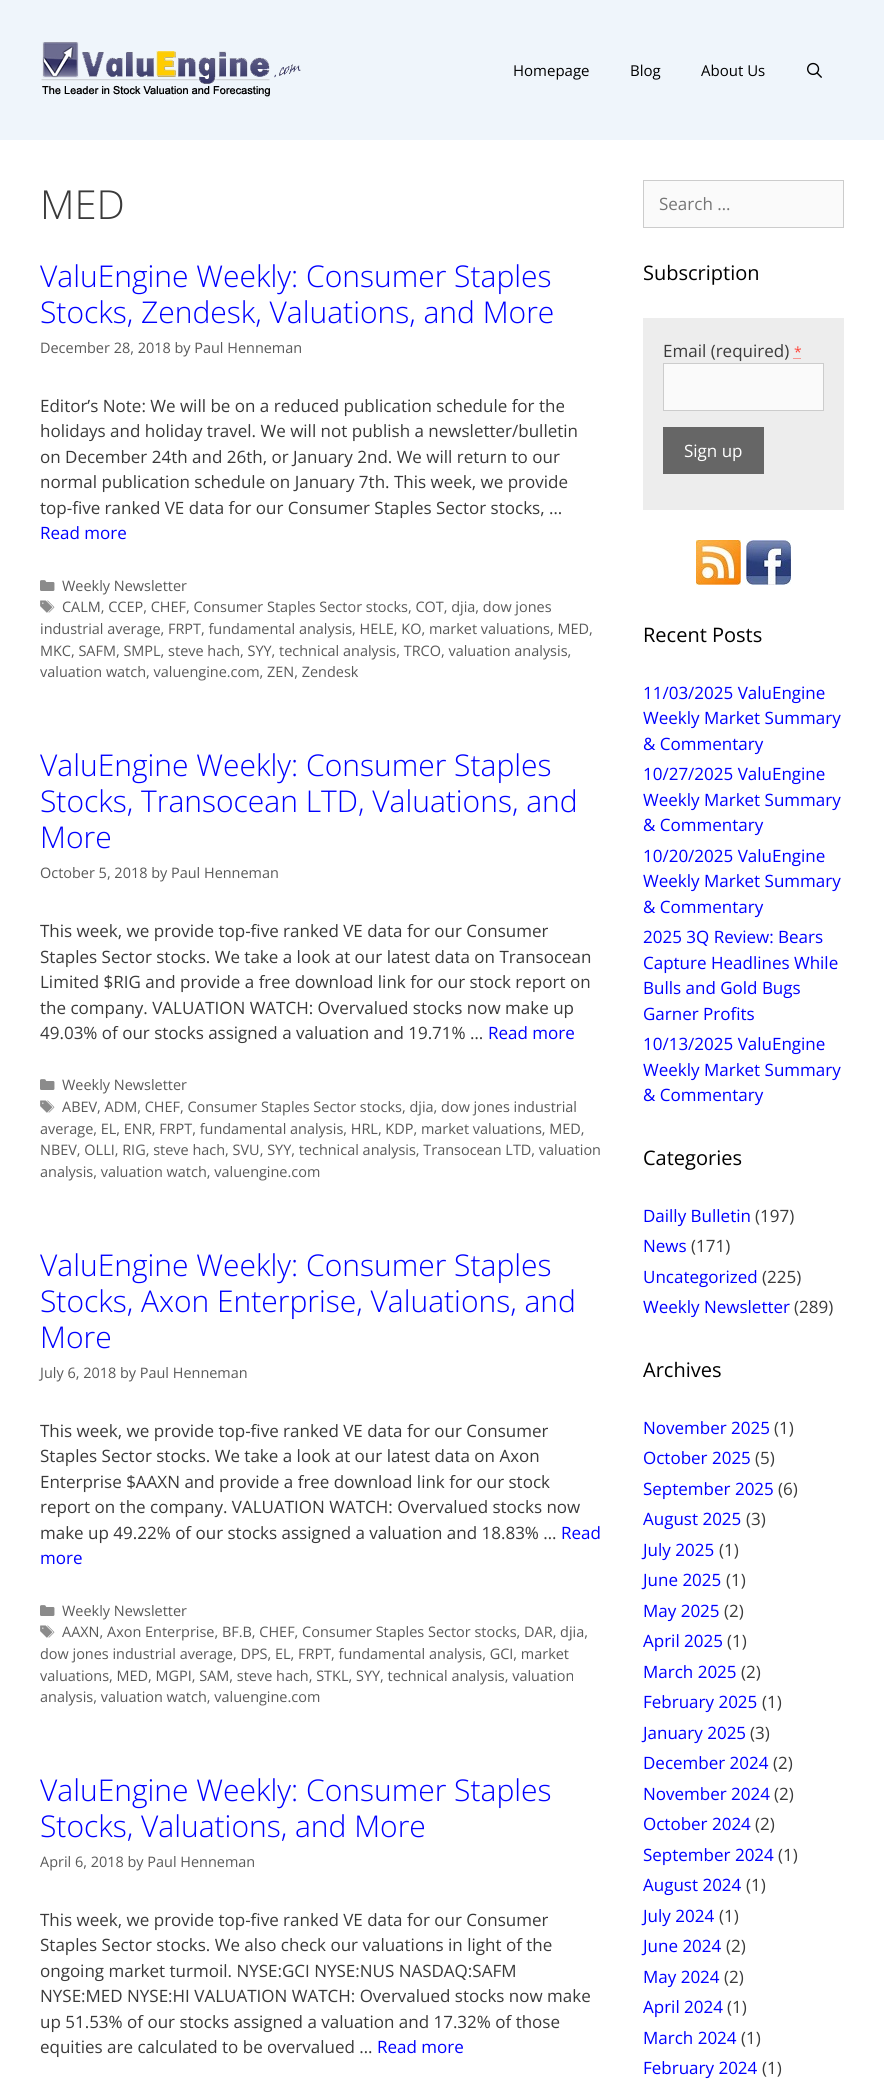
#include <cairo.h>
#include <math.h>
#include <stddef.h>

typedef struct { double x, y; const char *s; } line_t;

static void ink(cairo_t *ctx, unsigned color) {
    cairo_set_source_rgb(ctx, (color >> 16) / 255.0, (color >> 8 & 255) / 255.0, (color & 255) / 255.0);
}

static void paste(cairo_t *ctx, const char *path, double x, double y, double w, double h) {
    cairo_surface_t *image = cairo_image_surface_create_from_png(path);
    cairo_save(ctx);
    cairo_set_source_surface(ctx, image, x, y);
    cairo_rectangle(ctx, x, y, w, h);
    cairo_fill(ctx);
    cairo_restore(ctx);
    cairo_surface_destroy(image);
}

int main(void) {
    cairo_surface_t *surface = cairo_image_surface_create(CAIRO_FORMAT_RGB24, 884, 2080);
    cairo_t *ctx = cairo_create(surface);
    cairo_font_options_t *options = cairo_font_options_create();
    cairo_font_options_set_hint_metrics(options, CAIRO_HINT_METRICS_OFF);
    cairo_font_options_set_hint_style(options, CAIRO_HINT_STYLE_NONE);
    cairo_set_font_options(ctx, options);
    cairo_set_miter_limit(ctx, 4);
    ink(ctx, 0xFFFFFF);
    cairo_paint(ctx);
    ink(ctx, 0xEFF5FB);
    cairo_rectangle(ctx, 0, 0, 884, 140);
    cairo_fill(ctx);
    paste(ctx, "media/1.png", 41, 42, 260, 55);
    cairo_select_font_face(ctx, "Open Sans", CAIRO_FONT_SLANT_NORMAL, CAIRO_FONT_WEIGHT_NORMAL);
    cairo_set_font_size(ctx, 15);
    ink(ctx, 0x000000);
    {
        static const line_t items[] = {
            {513, 76, "Homepage"},
            {630, 76, "Blog"},
            {701, 76, "About Us"},
        };
        for (size_t i = 0; i < sizeof items / sizeof *items; i++) {
            cairo_move_to(ctx, items[i].x, items[i].y);
            cairo_show_text(ctx, items[i].s);
        }
    }
    paste(ctx, "media/2.png", 807, 62, 15, 16);
    cairo_select_font_face(ctx, "Open Sans Light", CAIRO_FONT_SLANT_NORMAL, CAIRO_FONT_WEIGHT_NORMAL);
    cairo_set_font_size(ctx, 40);
    ink(ctx, 0x3A3A3A);
    cairo_move_to(ctx, 40, 219);
    cairo_show_text(ctx, "MED");
    cairo_set_font_size(ctx, 30);
    ink(ctx, 0x0000FF);
    cairo_move_to(ctx, 40, 287);
    cairo_show_text(ctx, "ValuEngine Weekly: Consumer Staples");
    cairo_move_to(ctx, 40, 323);
    cairo_show_text(ctx, "Stocks, Zendesk, Valuations, and More");
    cairo_select_font_face(ctx, "Open Sans", CAIRO_FONT_SLANT_NORMAL, CAIRO_FONT_WEIGHT_NORMAL);
    cairo_set_font_size(ctx, 14.45);
    ink(ctx, 0x595959);
    cairo_move_to(ctx, 40, 353);
    cairo_show_text(ctx, "December 28, 2018 by Paul Henneman");
    cairo_set_font_size(ctx, 17);
    ink(ctx, 0x3A3A3A);
    {
        static const line_t items[] = {
            {40, 412, "Editor’s Note: We will be on a reduced publication schedule for the"},
            {40, 437, "holidays and holiday travel. We will not publish a newsletter/bulletin"},
            {40, 463, "on December 24th and 26th, or January 2nd. We will return to our"},
            {40, 488, "normal publication schedule on January 7th. This week, we provide"},
            {40, 514, "top-five ranked VE data for our Consumer Staples Sector stocks, …"},
        };
        for (size_t i = 0; i < sizeof items / sizeof *items; i++) {
            cairo_move_to(ctx, items[i].x, items[i].y);
            cairo_show_text(ctx, items[i].s);
        }
    }
    ink(ctx, 0x0000FF);
    cairo_move_to(ctx, 40, 539);
    cairo_show_text(ctx, "Read more");
    paste(ctx, "media/3.png", 40, 580, 15, 11);
    cairo_set_font_size(ctx, 14.45);
    ink(ctx, 0x595959);
    cairo_move_to(ctx, 62, 591);
    cairo_show_text(ctx, "Weekly Newsletter");
    paste(ctx, "media/4.png", 40, 600, 15, 13);
    {
        static const line_t items[] = {
            {62, 612, "CALM, CCEP, CHEF, Consumer Staples Sector stocks, COT, djia, dow jones"},
            {40, 634, "industrial average, FRPT, fundamental analysis, HELE, KO, market valuations, MED,"},
            {40, 656, "MKC, SAFM, SMPL, steve hach, SYY, technical analysis, TRCO, valuation analysis,"},
            {40, 677, "valuation watch, valuengine.com, ZEN, Zendesk"},
        };
        for (size_t i = 0; i < sizeof items / sizeof *items; i++) {
            cairo_move_to(ctx, items[i].x, items[i].y);
            cairo_show_text(ctx, items[i].s);
        }
    }
    cairo_select_font_face(ctx, "Open Sans Light", CAIRO_FONT_SLANT_NORMAL, CAIRO_FONT_WEIGHT_NORMAL);
    cairo_set_font_size(ctx, 30);
    ink(ctx, 0x0000FF);
    {
        static const line_t items[] = {
            {40, 776, "ValuEngine Weekly: Consumer Staples"},
            {40, 812, "Stocks, Transocean LTD, Valuations, and"},
            {40, 848, "More"},
        };
        for (size_t i = 0; i < sizeof items / sizeof *items; i++) {
            cairo_move_to(ctx, items[i].x, items[i].y);
            cairo_show_text(ctx, items[i].s);
        }
    }
    cairo_select_font_face(ctx, "Open Sans", CAIRO_FONT_SLANT_NORMAL, CAIRO_FONT_WEIGHT_NORMAL);
    cairo_set_font_size(ctx, 14.45);
    ink(ctx, 0x595959);
    cairo_move_to(ctx, 40, 878);
    cairo_show_text(ctx, "October 5, 2018 by Paul Henneman");
    cairo_set_font_size(ctx, 17);
    ink(ctx, 0x3A3A3A);
    {
        static const line_t items[] = {
            {40, 937, "This week, we provide top-five ranked VE data for our Consumer"},
            {40, 963, "Staples Sector stocks. We take a look at our latest data on Transocean"},
            {40, 988, "Limited $RIG and provide a free download link for our stock report on"},
            {40, 1014, "the company. VALUATION WATCH: Overvalued stocks now make up"},
            {40, 1039, "49.03% of our stocks assigned a valuation and 19.71% …"},
        };
        for (size_t i = 0; i < sizeof items / sizeof *items; i++) {
            cairo_move_to(ctx, items[i].x, items[i].y);
            cairo_show_text(ctx, items[i].s);
        }
    }
    ink(ctx, 0x0000FF);
    cairo_move_to(ctx, 488, 1039);
    cairo_show_text(ctx, "Read more");
    paste(ctx, "media/3.png", 40, 1079, 15, 11);
    cairo_set_font_size(ctx, 14.45);
    ink(ctx, 0x595959);
    cairo_move_to(ctx, 62, 1090);
    cairo_show_text(ctx, "Weekly Newsletter");
    paste(ctx, "media/4.png", 40, 1100, 15, 13);
    {
        static const line_t items[] = {
            {62, 1112, "ABEV, ADM, CHEF, Consumer Staples Sector stocks, djia, dow jones industrial"},
            {40, 1134, "average, EL, ENR, FRPT, fundamental analysis, HRL, KDP, market valuations, MED,"},
            {40, 1155, "NBEV, OLLI, RIG, steve hach, SVU, SYY, technical analysis, Transocean LTD, valuation"},
            {40, 1177, "analysis, valuation watch, valuengine.com"},
        };
        for (size_t i = 0; i < sizeof items / sizeof *items; i++) {
            cairo_move_to(ctx, items[i].x, items[i].y);
            cairo_show_text(ctx, items[i].s);
        }
    }
    cairo_select_font_face(ctx, "Open Sans Light", CAIRO_FONT_SLANT_NORMAL, CAIRO_FONT_WEIGHT_NORMAL);
    cairo_set_font_size(ctx, 30);
    ink(ctx, 0x0000FF);
    {
        static const line_t items[] = {
            {40, 1276, "ValuEngine Weekly: Consumer Staples"},
            {40, 1312, "Stocks, Axon Enterprise, Valuations, and"},
            {40, 1348, "More"},
        };
        for (size_t i = 0; i < sizeof items / sizeof *items; i++) {
            cairo_move_to(ctx, items[i].x, items[i].y);
            cairo_show_text(ctx, items[i].s);
        }
    }
    cairo_select_font_face(ctx, "Open Sans", CAIRO_FONT_SLANT_NORMAL, CAIRO_FONT_WEIGHT_NORMAL);
    cairo_set_font_size(ctx, 14.45);
    ink(ctx, 0x595959);
    cairo_move_to(ctx, 40, 1378);
    cairo_show_text(ctx, "July 6, 2018 by Paul Henneman");
    cairo_set_font_size(ctx, 17);
    ink(ctx, 0x3A3A3A);
    {
        static const line_t items[] = {
            {40, 1437, "This week, we provide top-five ranked VE data for our Consumer"},
            {40, 1462, "Staples Sector stocks. We take a look at our latest data on Axon"},
            {40, 1488, "Enterprise $AAXN and provide a free download link for our stock"},
            {40, 1513, "report on the company. VALUATION WATCH: Overvalued stocks now"},
            {40, 1539, "make up 49.22% of our stocks assigned a valuation and 18.83% …"},
        };
        for (size_t i = 0; i < sizeof items / sizeof *items; i++) {
            cairo_move_to(ctx, items[i].x, items[i].y);
            cairo_show_text(ctx, items[i].s);
        }
    }
    ink(ctx, 0x0000FF);
    cairo_move_to(ctx, 561, 1539);
    cairo_show_text(ctx, "Read");
    cairo_move_to(ctx, 40, 1564);
    cairo_show_text(ctx, "more");
    paste(ctx, "media/3.png", 40, 1605, 15, 11);
    cairo_set_font_size(ctx, 14.45);
    ink(ctx, 0x595959);
    cairo_move_to(ctx, 62, 1616);
    cairo_show_text(ctx, "Weekly Newsletter");
    paste(ctx, "media/4.png", 40, 1625, 15, 13);
    {
        static const line_t items[] = {
            {62, 1637, "AAXN, Axon Enterprise, BF.B, CHEF, Consumer Staples Sector stocks, DAR, djia,"},
            {40, 1659, "dow jones industrial average, DPS, EL, FRPT, fundamental analysis, GCI, market"},
            {40, 1681, "valuations, MED, MGPI, SAM, steve hach, STKL, SYY, technical analysis, valuation"},
            {40, 1702, "analysis, valuation watch, valuengine.com"},
        };
        for (size_t i = 0; i < sizeof items / sizeof *items; i++) {
            cairo_move_to(ctx, items[i].x, items[i].y);
            cairo_show_text(ctx, items[i].s);
        }
    }
    cairo_select_font_face(ctx, "Open Sans Light", CAIRO_FONT_SLANT_NORMAL, CAIRO_FONT_WEIGHT_NORMAL);
    cairo_set_font_size(ctx, 30);
    ink(ctx, 0x0000FF);
    cairo_move_to(ctx, 40, 1801);
    cairo_show_text(ctx, "ValuEngine Weekly: Consumer Staples");
    cairo_move_to(ctx, 40, 1837);
    cairo_show_text(ctx, "Stocks, Valuations, and More");
    cairo_select_font_face(ctx, "Open Sans", CAIRO_FONT_SLANT_NORMAL, CAIRO_FONT_WEIGHT_NORMAL);
    cairo_set_font_size(ctx, 14.45);
    ink(ctx, 0x595959);
    cairo_move_to(ctx, 40, 1867);
    cairo_show_text(ctx, "April 6, 2018 by Paul Henneman");
    cairo_set_font_size(ctx, 17);
    ink(ctx, 0x3A3A3A);
    {
        static const line_t items[] = {
            {40, 1926, "This week, we provide top-five ranked VE data for our Consumer"},
            {40, 1951, "Staples Sector stocks. We also check our valuations in light of the"},
            {40, 1977, "ongoing market turmoil. NYSE:GCI NYSE:NUS NASDAQ:SAFM"},
            {40, 2002, "NYSE:MED NYSE:HI VALUATION WATCH: Overvalued stocks now make"},
            {40, 2028, "up 51.53% of our stocks assigned a valuation and 17.32% of those"},
            {40, 2053, "equities are calculated to be overvalued …"},
        };
        for (size_t i = 0; i < sizeof items / sizeof *items; i++) {
            cairo_move_to(ctx, items[i].x, items[i].y);
            cairo_show_text(ctx, items[i].s);
        }
    }
    ink(ctx, 0x0000FF);
    cairo_move_to(ctx, 377, 2053);
    cairo_show_text(ctx, "Read more");
    ink(ctx, 0xFAFAFA);
    cairo_rectangle(ctx, 643.5, 180.5, 200, 47);
    cairo_fill_preserve(ctx);
    ink(ctx, 0xCCCCCC);
    cairo_set_line_width(ctx, 1);
    cairo_stroke(ctx);
    ink(ctx, 0x757575);
    cairo_move_to(ctx, 659, 210);
    cairo_show_text(ctx, "Search …");
    cairo_set_font_size(ctx, 20);
    ink(ctx, 0x000000);
    cairo_move_to(ctx, 643, 280);
    cairo_show_text(ctx, "Subscription");
    ink(ctx, 0xEDEDED);
    cairo_rectangle(ctx, 643, 318, 201, 192);
    cairo_fill(ctx);
    cairo_set_font_size(ctx, 17);
    ink(ctx, 0x3A3A3A);
    cairo_move_to(ctx, 663, 357);
    cairo_show_text(ctx, "Email (required)");
    cairo_set_font_size(ctx, 14);
    ink(ctx, 0xFF4136);
    cairo_move_to(ctx, 794, 357);
    cairo_show_text(ctx, "*");
    cairo_new_path(ctx);
    cairo_move_to(ctx, 793.5, 358.5);
    cairo_line_to(ctx, 801.5, 358.5);
    cairo_set_dash(ctx, (double[]){1, 1}, 2, 0);
    cairo_stroke(ctx);
    ink(ctx, 0xFAFAFA);
    cairo_rectangle(ctx, 663.5, 363.5, 160, 47);
    cairo_fill_preserve(ctx);
    ink(ctx, 0xCCCCCC);
    cairo_set_dash(ctx, NULL, 0, 0);
    cairo_stroke(ctx);
    ink(ctx, 0x666666);
    cairo_rectangle(ctx, 663, 427, 101, 47);
    cairo_fill(ctx);
    cairo_set_font_size(ctx, 17);
    ink(ctx, 0xFFFFFF);
    cairo_move_to(ctx, 684, 457);
    cairo_show_text(ctx, "Sign up");
    paste(ctx, "media/5.png", 696, 540, 45, 45);
    paste(ctx, "media/6.png", 746, 540, 45, 45);
    cairo_set_font_size(ctx, 20);
    ink(ctx, 0x000000);
    cairo_move_to(ctx, 643, 642);
    cairo_show_text(ctx, "Recent Posts");
    cairo_set_font_size(ctx, 17);
    ink(ctx, 0x0000FF);
    {
        static const line_t items[] = {
            {643, 699, "11/03/2025 ValuEngine"},
            {643, 724, "Weekly Market Summary"},
            {643, 750, "& Commentary"},
            {643, 780, "10/27/2025 ValuEngine"},
            {643, 806, "Weekly Market Summary"},
            {643, 831, "& Commentary"},
            {643, 862, "10/20/2025 ValuEngine"},
            {643, 887, "Weekly Market Summary"},
            {643, 913, "& Commentary"},
            {643, 943, "2025 3Q Review: Bears"},
            {643, 969, "Capture Headlines While"},
            {643, 994, "Bulls and Gold Bugs"},
            {643, 1020, "Garner Profits"},
            {643, 1050, "10/13/2025 ValuEngine"},
            {643, 1076, "Weekly Market Summary"},
            {643, 1101, "& Commentary"},
        };
        for (size_t i = 0; i < sizeof items / sizeof *items; i++) {
            cairo_move_to(ctx, items[i].x, items[i].y);
            cairo_show_text(ctx, items[i].s);
        }
    }
    cairo_set_font_size(ctx, 20);
    ink(ctx, 0x000000);
    cairo_move_to(ctx, 643, 1165);
    cairo_show_text(ctx, "Categories");
    cairo_set_font_size(ctx, 17);
    ink(ctx, 0x0000FF);
    cairo_move_to(ctx, 643, 1222);
    cairo_show_text(ctx, "Dailly Bulletin");
    ink(ctx, 0x3A3A3A);
    cairo_move_to(ctx, 755, 1222);
    cairo_show_text(ctx, "(197)");
    ink(ctx, 0x0000FF);
    cairo_move_to(ctx, 643, 1252);
    cairo_show_text(ctx, "News");
    ink(ctx, 0x3A3A3A);
    cairo_move_to(ctx, 691, 1252);
    cairo_show_text(ctx, "(171)");
    ink(ctx, 0x0000FF);
    cairo_move_to(ctx, 643, 1283);
    cairo_show_text(ctx, "Uncategorized");
    ink(ctx, 0x3A3A3A);
    cairo_move_to(ctx, 762, 1283);
    cairo_show_text(ctx, "(225)");
    ink(ctx, 0x0000FF);
    cairo_move_to(ctx, 643, 1313);
    cairo_show_text(ctx, "Weekly Newsletter");
    ink(ctx, 0x3A3A3A);
    cairo_move_to(ctx, 794, 1313);
    cairo_show_text(ctx, "(289)");
    cairo_set_font_size(ctx, 20);
    ink(ctx, 0x000000);
    cairo_move_to(ctx, 643, 1377);
    cairo_show_text(ctx, "Archives");
    cairo_set_font_size(ctx, 17);
    ink(ctx, 0x0000FF);
    cairo_move_to(ctx, 643, 1434);
    cairo_show_text(ctx, "November 2025");
    ink(ctx, 0x3A3A3A);
    cairo_move_to(ctx, 774, 1434);
    cairo_show_text(ctx, "(1)");
    ink(ctx, 0x0000FF);
    cairo_move_to(ctx, 643, 1464);
    cairo_show_text(ctx, "October 2025");
    ink(ctx, 0x3A3A3A);
    cairo_move_to(ctx, 755, 1464);
    cairo_show_text(ctx, "(5)");
    ink(ctx, 0x0000FF);
    cairo_move_to(ctx, 643, 1495);
    cairo_show_text(ctx, "September 2025");
    ink(ctx, 0x3A3A3A);
    cairo_move_to(ctx, 778, 1495);
    cairo_show_text(ctx, "(6)");
    ink(ctx, 0x0000FF);
    cairo_move_to(ctx, 643, 1525);
    cairo_show_text(ctx, "August 2025");
    ink(ctx, 0x3A3A3A);
    cairo_move_to(ctx, 746, 1525);
    cairo_show_text(ctx, "(3)");
    ink(ctx, 0x0000FF);
    cairo_move_to(ctx, 643, 1556);
    cairo_show_text(ctx, "July 2025");
    ink(ctx, 0x3A3A3A);
    cairo_move_to(ctx, 719, 1556);
    cairo_show_text(ctx, "(1)");
    ink(ctx, 0x0000FF);
    cairo_move_to(ctx, 643, 1586);
    cairo_show_text(ctx, "June 2025");
    ink(ctx, 0x3A3A3A);
    cairo_move_to(ctx, 726, 1586);
    cairo_show_text(ctx, "(1)");
    ink(ctx, 0x0000FF);
    cairo_move_to(ctx, 643, 1617);
    cairo_show_text(ctx, "May 2025");
    ink(ctx, 0x3A3A3A);
    cairo_move_to(ctx, 724, 1617);
    cairo_show_text(ctx, "(2)");
    ink(ctx, 0x0000FF);
    cairo_move_to(ctx, 643, 1647);
    cairo_show_text(ctx, "April 2025");
    ink(ctx, 0x3A3A3A);
    cairo_move_to(ctx, 727, 1647);
    cairo_show_text(ctx, "(1)");
    ink(ctx, 0x0000FF);
    cairo_move_to(ctx, 643, 1678);
    cairo_show_text(ctx, "March 2025");
    ink(ctx, 0x3A3A3A);
    cairo_move_to(ctx, 741, 1678);
    cairo_show_text(ctx, "(2)");
    ink(ctx, 0x0000FF);
    cairo_move_to(ctx, 643, 1708);
    cairo_show_text(ctx, "February 2025");
    ink(ctx, 0x3A3A3A);
    cairo_move_to(ctx, 762, 1708);
    cairo_show_text(ctx, "(1)");
    ink(ctx, 0x0000FF);
    cairo_move_to(ctx, 643, 1739);
    cairo_show_text(ctx, "January 2025");
    ink(ctx, 0x3A3A3A);
    cairo_move_to(ctx, 750, 1739);
    cairo_show_text(ctx, "(3)");
    ink(ctx, 0x0000FF);
    cairo_move_to(ctx, 643, 1769);
    cairo_show_text(ctx, "December 2024");
    ink(ctx, 0x3A3A3A);
    cairo_move_to(ctx, 773, 1769);
    cairo_show_text(ctx, "(2)");
    ink(ctx, 0x0000FF);
    cairo_move_to(ctx, 643, 1800);
    cairo_show_text(ctx, "November 2024");
    ink(ctx, 0x3A3A3A);
    cairo_move_to(ctx, 774, 1800);
    cairo_show_text(ctx, "(2)");
    ink(ctx, 0x0000FF);
    cairo_move_to(ctx, 643, 1830);
    cairo_show_text(ctx, "October 2024");
    ink(ctx, 0x3A3A3A);
    cairo_move_to(ctx, 755, 1830);
    cairo_show_text(ctx, "(2)");
    ink(ctx, 0x0000FF);
    cairo_move_to(ctx, 643, 1861);
    cairo_show_text(ctx, "September 2024");
    ink(ctx, 0x3A3A3A);
    cairo_move_to(ctx, 778, 1861);
    cairo_show_text(ctx, "(1)");
    ink(ctx, 0x0000FF);
    cairo_move_to(ctx, 643, 1891);
    cairo_show_text(ctx, "August 2024");
    ink(ctx, 0x3A3A3A);
    cairo_move_to(ctx, 746, 1891);
    cairo_show_text(ctx, "(1)");
    ink(ctx, 0x0000FF);
    cairo_move_to(ctx, 643, 1922);
    cairo_show_text(ctx, "July 2024");
    ink(ctx, 0x3A3A3A);
    cairo_move_to(ctx, 719, 1922);
    cairo_show_text(ctx, "(1)");
    ink(ctx, 0x0000FF);
    cairo_move_to(ctx, 643, 1952);
    cairo_show_text(ctx, "June 2024");
    ink(ctx, 0x3A3A3A);
    cairo_move_to(ctx, 726, 1952);
    cairo_show_text(ctx, "(2)");
    ink(ctx, 0x0000FF);
    cairo_move_to(ctx, 643, 1983);
    cairo_show_text(ctx, "May 2024");
    ink(ctx, 0x3A3A3A);
    cairo_move_to(ctx, 724, 1983);
    cairo_show_text(ctx, "(2)");
    ink(ctx, 0x0000FF);
    cairo_move_to(ctx, 643, 2013);
    cairo_show_text(ctx, "April 2024");
    ink(ctx, 0x3A3A3A);
    cairo_move_to(ctx, 727, 2013);
    cairo_show_text(ctx, "(1)");
    ink(ctx, 0x0000FF);
    cairo_move_to(ctx, 643, 2044);
    cairo_show_text(ctx, "March 2024");
    ink(ctx, 0x3A3A3A);
    cairo_move_to(ctx, 741, 2044);
    cairo_show_text(ctx, "(1)");
    ink(ctx, 0x0000FF);
    cairo_move_to(ctx, 643, 2074);
    cairo_show_text(ctx, "February 2024");
    ink(ctx, 0x3A3A3A);
    cairo_move_to(ctx, 762, 2074);
    cairo_show_text(ctx, "(1)");
    cairo_surface_write_to_png(surface, "image.png");
    cairo_font_options_destroy(options);
    cairo_destroy(ctx);
    cairo_surface_destroy(surface);
    return 0;
}
